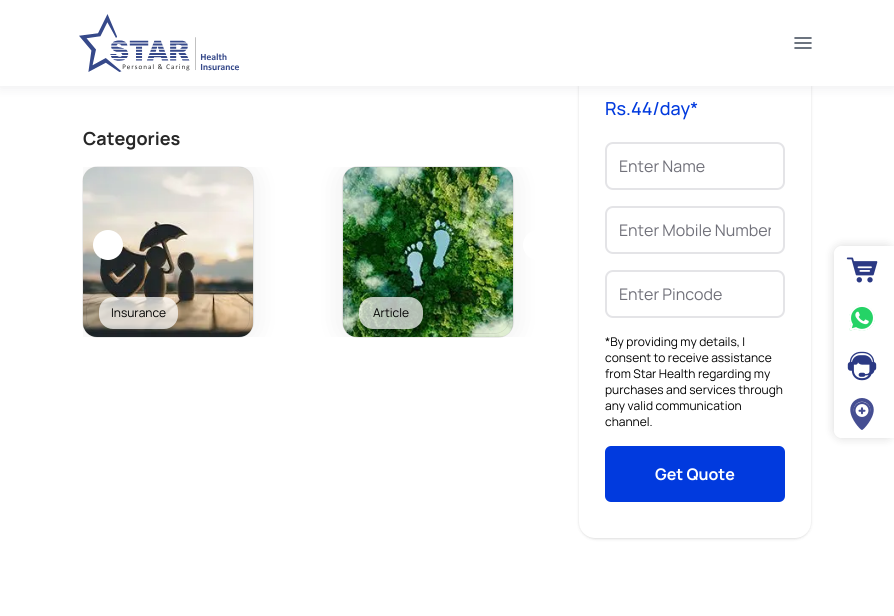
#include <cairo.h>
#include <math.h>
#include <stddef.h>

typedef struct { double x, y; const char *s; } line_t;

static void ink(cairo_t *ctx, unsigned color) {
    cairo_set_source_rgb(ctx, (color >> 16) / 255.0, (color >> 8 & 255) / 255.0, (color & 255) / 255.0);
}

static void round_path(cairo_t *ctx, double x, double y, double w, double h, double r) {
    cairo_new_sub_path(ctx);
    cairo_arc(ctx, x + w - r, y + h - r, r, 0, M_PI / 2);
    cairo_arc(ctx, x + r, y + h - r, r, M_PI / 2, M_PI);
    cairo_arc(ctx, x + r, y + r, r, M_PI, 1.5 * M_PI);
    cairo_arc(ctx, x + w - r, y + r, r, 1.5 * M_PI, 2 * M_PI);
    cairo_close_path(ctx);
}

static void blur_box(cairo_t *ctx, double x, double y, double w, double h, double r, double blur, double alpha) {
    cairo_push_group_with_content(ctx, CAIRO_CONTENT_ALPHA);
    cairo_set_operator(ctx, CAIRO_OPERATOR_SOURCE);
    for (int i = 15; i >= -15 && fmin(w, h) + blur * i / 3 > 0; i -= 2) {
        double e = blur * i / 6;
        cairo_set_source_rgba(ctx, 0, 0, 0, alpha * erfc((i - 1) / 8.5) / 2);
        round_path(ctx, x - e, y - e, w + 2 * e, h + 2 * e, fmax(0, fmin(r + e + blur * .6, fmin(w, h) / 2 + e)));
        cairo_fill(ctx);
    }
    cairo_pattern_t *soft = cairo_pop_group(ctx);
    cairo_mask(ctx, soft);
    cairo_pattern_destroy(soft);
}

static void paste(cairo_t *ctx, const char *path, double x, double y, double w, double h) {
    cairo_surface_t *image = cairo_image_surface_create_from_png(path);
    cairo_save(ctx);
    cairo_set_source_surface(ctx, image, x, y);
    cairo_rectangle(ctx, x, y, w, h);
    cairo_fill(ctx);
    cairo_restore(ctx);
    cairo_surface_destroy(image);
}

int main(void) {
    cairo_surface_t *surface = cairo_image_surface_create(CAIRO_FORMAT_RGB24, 894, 616);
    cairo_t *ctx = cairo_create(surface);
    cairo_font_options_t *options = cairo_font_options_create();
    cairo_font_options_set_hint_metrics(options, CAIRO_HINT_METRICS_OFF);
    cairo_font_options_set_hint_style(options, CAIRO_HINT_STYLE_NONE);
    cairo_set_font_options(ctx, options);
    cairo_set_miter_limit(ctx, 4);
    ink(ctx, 0xFFFFFF);
    cairo_paint(ctx);
    ink(ctx, 0x000000);
    blur_box(ctx, 580, 20, 230, 518, 15, 1, 0.1);
    blur_box(ctx, 579, 19, 232, 520, 16, 1.5, 0.1);
    ink(ctx, 0xFFFFFF);
    round_path(ctx, 579, 18, 232, 520, 16);
    cairo_fill(ctx);
    ink(ctx, 0x21243C);
    blur_box(ctx, 0, 2, 894, 86, 0, 6, 0.08);
    ink(ctx, 0xFFFFFF);
    cairo_rectangle(ctx, 0, 0, 894, 86);
    cairo_fill(ctx);
    paste(ctx, "media/1.png", 79, 14, 160, 58);
    cairo_new_path(ctx);
    cairo_move_to(ctx, 795, 38);
    cairo_line_to(ctx, 811, 38);
    cairo_move_to(ctx, 795, 43);
    cairo_line_to(ctx, 811, 43);
    cairo_move_to(ctx, 795, 48);
    cairo_line_to(ctx, 811, 48);
    ink(ctx, 0x374151);
    cairo_set_line_width(ctx, 1.5);
    cairo_set_line_cap(ctx, CAIRO_LINE_CAP_ROUND);
    cairo_set_line_join(ctx, CAIRO_LINE_JOIN_ROUND);
    cairo_stroke(ctx);
    cairo_select_font_face(ctx, "Manrope", CAIRO_FONT_SLANT_NORMAL, CAIRO_FONT_WEIGHT_BOLD);
    cairo_set_font_size(ctx, 18);
    ink(ctx, 0x272727);
    cairo_move_to(ctx, 83, 145);
    cairo_show_text(ctx, "Categories");
    ink(ctx, 0x000000);
    blur_box(ctx, 83, 167, 170, 170, 14, 0.5, 0.3);
    cairo_save(ctx);
    cairo_rectangle(ctx, 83, 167, 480, 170);
    cairo_clip(ctx);
    blur_box(ctx, 83, 169, 170, 170, 14, 15, 0.08);
    cairo_restore(ctx);
    paste(ctx, "media/2.png", 83, 167, 170, 170);
    ink(ctx, 0xFFFFFF);
    cairo_arc(ctx, 108, 245, 15, 0, 2 * M_PI);
    cairo_fill(ctx);
    cairo_save(ctx);
    cairo_rectangle(ctx, 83, 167, 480, 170);
    cairo_clip(ctx);
    ink(ctx, 0x000000);
    blur_box(ctx, 343, 169, 170, 170, 14, 15, 0.08);
    cairo_restore(ctx);
    cairo_arc(ctx, 538, 245, 15, 0, 2 * M_PI);
    cairo_fill(ctx);
    cairo_save(ctx);
    cairo_set_fill_rule(ctx, CAIRO_FILL_RULE_EVEN_ODD);
    cairo_new_path(ctx);
    cairo_move_to(ctx, 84, 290);
    cairo_line_to(ctx, 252, 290);
    cairo_line_to(ctx, 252, 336);
    cairo_line_to(ctx, 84, 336);
    cairo_close_path(ctx);
    cairo_move_to(ctx, 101, 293);
    cairo_line_to(ctx, 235, 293);
    cairo_curve_to(ctx, 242.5, 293, 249, 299.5, 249, 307);
    cairo_line_to(ctx, 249, 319);
    cairo_curve_to(ctx, 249, 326.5, 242.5, 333, 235, 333);
    cairo_line_to(ctx, 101, 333);
    cairo_curve_to(ctx, 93.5, 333, 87, 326.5, 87, 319);
    cairo_line_to(ctx, 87, 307);
    cairo_curve_to(ctx, 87, 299.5, 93.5, 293, 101, 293);
    cairo_close_path(ctx);
    cairo_clip(ctx);
    ink(ctx, 0x000000);
    blur_box(ctx, 87, 293, 162, 40, 14, 0.5, 0.3);
    cairo_restore(ctx);
    cairo_set_source_rgba(ctx, 1, 1, 1, 0.7);
    round_path(ctx, 99, 297, 79, 32, 14);
    cairo_fill(ctx);
    cairo_select_font_face(ctx, "Manrope", CAIRO_FONT_SLANT_NORMAL, CAIRO_FONT_WEIGHT_NORMAL);
    cairo_set_font_size(ctx, 12);
    ink(ctx, 0x000000);
    cairo_move_to(ctx, 111, 317);
    cairo_show_text(ctx, "Insurance");
    ink(ctx, 0x000000);
    blur_box(ctx, 343, 167, 170, 170, 14, 0.5, 0.3);
    paste(ctx, "media/3.png", 343, 167, 170, 170);
    cairo_save(ctx);
    cairo_set_fill_rule(ctx, CAIRO_FILL_RULE_EVEN_ODD);
    cairo_new_path(ctx);
    cairo_move_to(ctx, 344, 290);
    cairo_line_to(ctx, 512, 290);
    cairo_line_to(ctx, 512, 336);
    cairo_line_to(ctx, 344, 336);
    cairo_close_path(ctx);
    cairo_move_to(ctx, 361, 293);
    cairo_line_to(ctx, 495, 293);
    cairo_curve_to(ctx, 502.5, 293, 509, 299.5, 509, 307);
    cairo_line_to(ctx, 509, 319);
    cairo_curve_to(ctx, 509, 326.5, 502.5, 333, 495, 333);
    cairo_line_to(ctx, 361, 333);
    cairo_curve_to(ctx, 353.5, 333, 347, 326.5, 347, 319);
    cairo_line_to(ctx, 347, 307);
    cairo_curve_to(ctx, 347, 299.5, 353.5, 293, 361, 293);
    cairo_close_path(ctx);
    cairo_clip(ctx);
    blur_box(ctx, 347, 293, 162, 40, 14, 0.5, 0.3);
    cairo_restore(ctx);
    cairo_set_source_rgba(ctx, 1, 1, 1, 0.7);
    round_path(ctx, 359, 297, 64, 32, 14);
    cairo_fill(ctx);
    ink(ctx, 0x000000);
    cairo_move_to(ctx, 373, 317);
    cairo_show_text(ctx, "Article");
    cairo_select_font_face(ctx, "Manrope Medium", CAIRO_FONT_SLANT_NORMAL, CAIRO_FONT_WEIGHT_NORMAL);
    cairo_set_font_size(ctx, 18);
    ink(ctx, 0x013ADE);
    cairo_move_to(ctx, 605, 115);
    cairo_show_text(ctx, "Rs.44/day*");
    round_path(ctx, 606, 143, 178, 46, 7);
    ink(ctx, 0xE4E4E7);
    cairo_set_line_width(ctx, 2);
    cairo_set_line_cap(ctx, CAIRO_LINE_CAP_BUTT);
    cairo_set_line_join(ctx, CAIRO_LINE_JOIN_MITER);
    cairo_stroke(ctx);
    cairo_select_font_face(ctx, "Manrope", CAIRO_FONT_SLANT_NORMAL, CAIRO_FONT_WEIGHT_NORMAL);
    cairo_set_font_size(ctx, 16);
    ink(ctx, 0x71717A);
    cairo_move_to(ctx, 619, 172);
    cairo_show_text(ctx, "Enter Name");
    round_path(ctx, 606, 207, 178, 46, 7);
    ink(ctx, 0xE4E4E7);
    cairo_stroke(ctx);
    cairo_save(ctx);
    cairo_rectangle(ctx, 619, 219, 152, 22);
    cairo_clip(ctx);
    ink(ctx, 0x71717A);
    cairo_move_to(ctx, 619, 236);
    cairo_show_text(ctx, "Enter Mobile Number");
    cairo_restore(ctx);
    round_path(ctx, 606, 271, 178, 46, 7);
    cairo_stroke(ctx);
    ink(ctx, 0x71717A);
    cairo_move_to(ctx, 619, 300);
    cairo_show_text(ctx, "Enter Pincode");
    cairo_set_font_size(ctx, 12);
    ink(ctx, 0x000000);
    {
        static const line_t items[] = {
            {605, 346, "*By providing my details, I"},
            {605, 362, "consent to receive assistance"},
            {605, 378, "from Star Health regarding my"},
            {605, 394, "purchases and services through"},
            {605, 410, "any valid communication"},
            {605, 426, "channel."},
        };
        for (size_t i = 0; i < sizeof items / sizeof *items; i++) {
            cairo_move_to(ctx, items[i].x, items[i].y);
            cairo_show_text(ctx, items[i].s);
        }
    }
    ink(ctx, 0x013ADE);
    round_path(ctx, 605, 446, 180, 56, 6);
    cairo_fill(ctx);
    cairo_select_font_face(ctx, "Manrope", CAIRO_FONT_SLANT_NORMAL, CAIRO_FONT_WEIGHT_BOLD);
    cairo_set_font_size(ctx, 16);
    ink(ctx, 0xFFFFFF);
    cairo_move_to(ctx, 655, 480);
    cairo_show_text(ctx, "Get Quote");
    ink(ctx, 0x000000);
    blur_box(ctx, 834, 246, 60, 192, 8, 5, 0.15);
    ink(ctx, 0xFFFFFF);
    cairo_new_path(ctx);
    cairo_move_to(ctx, 842, 246);
    cairo_line_to(ctx, 894, 246);
    cairo_line_to(ctx, 894, 438);
    cairo_line_to(ctx, 842, 438);
    cairo_curve_to(ctx, 837.5, 438, 834, 434.5, 834, 430);
    cairo_line_to(ctx, 834, 254);
    cairo_curve_to(ctx, 834, 249.5, 837.5, 246, 842, 246);
    cairo_close_path(ctx);
    cairo_fill(ctx);
    cairo_new_path(ctx);
    cairo_move_to(ctx, 842, 246);
    cairo_line_to(ctx, 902, 246);
    cairo_line_to(ctx, 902, 294);
    cairo_line_to(ctx, 842, 294);
    cairo_curve_to(ctx, 837.5, 294, 834, 290.5, 834, 286);
    cairo_line_to(ctx, 834, 254);
    cairo_curve_to(ctx, 834, 249.5, 837.5, 246, 842, 246);
    cairo_close_path(ctx);
    cairo_fill(ctx);
    paste(ctx, "media/4.png", 846, 257, 32, 26);
    paste(ctx, "media/5.png", 849, 305, 26, 26);
    paste(ctx, "media/6.png", 847, 351, 30, 30);
    cairo_new_path(ctx);
    cairo_move_to(ctx, 842, 390);
    cairo_line_to(ctx, 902, 390);
    cairo_line_to(ctx, 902, 438);
    cairo_line_to(ctx, 842, 438);
    cairo_curve_to(ctx, 837.5, 438, 834, 434.5, 834, 430);
    cairo_line_to(ctx, 834, 398);
    cairo_curve_to(ctx, 834, 393.5, 837.5, 390, 842, 390);
    cairo_close_path(ctx);
    cairo_fill(ctx);
    paste(ctx, "media/7.png", 850, 398, 24, 32);
    cairo_surface_write_to_png(surface, "image.png");
    cairo_font_options_destroy(options);
    cairo_destroy(ctx);
    cairo_surface_destroy(surface);
    return 0;
}
